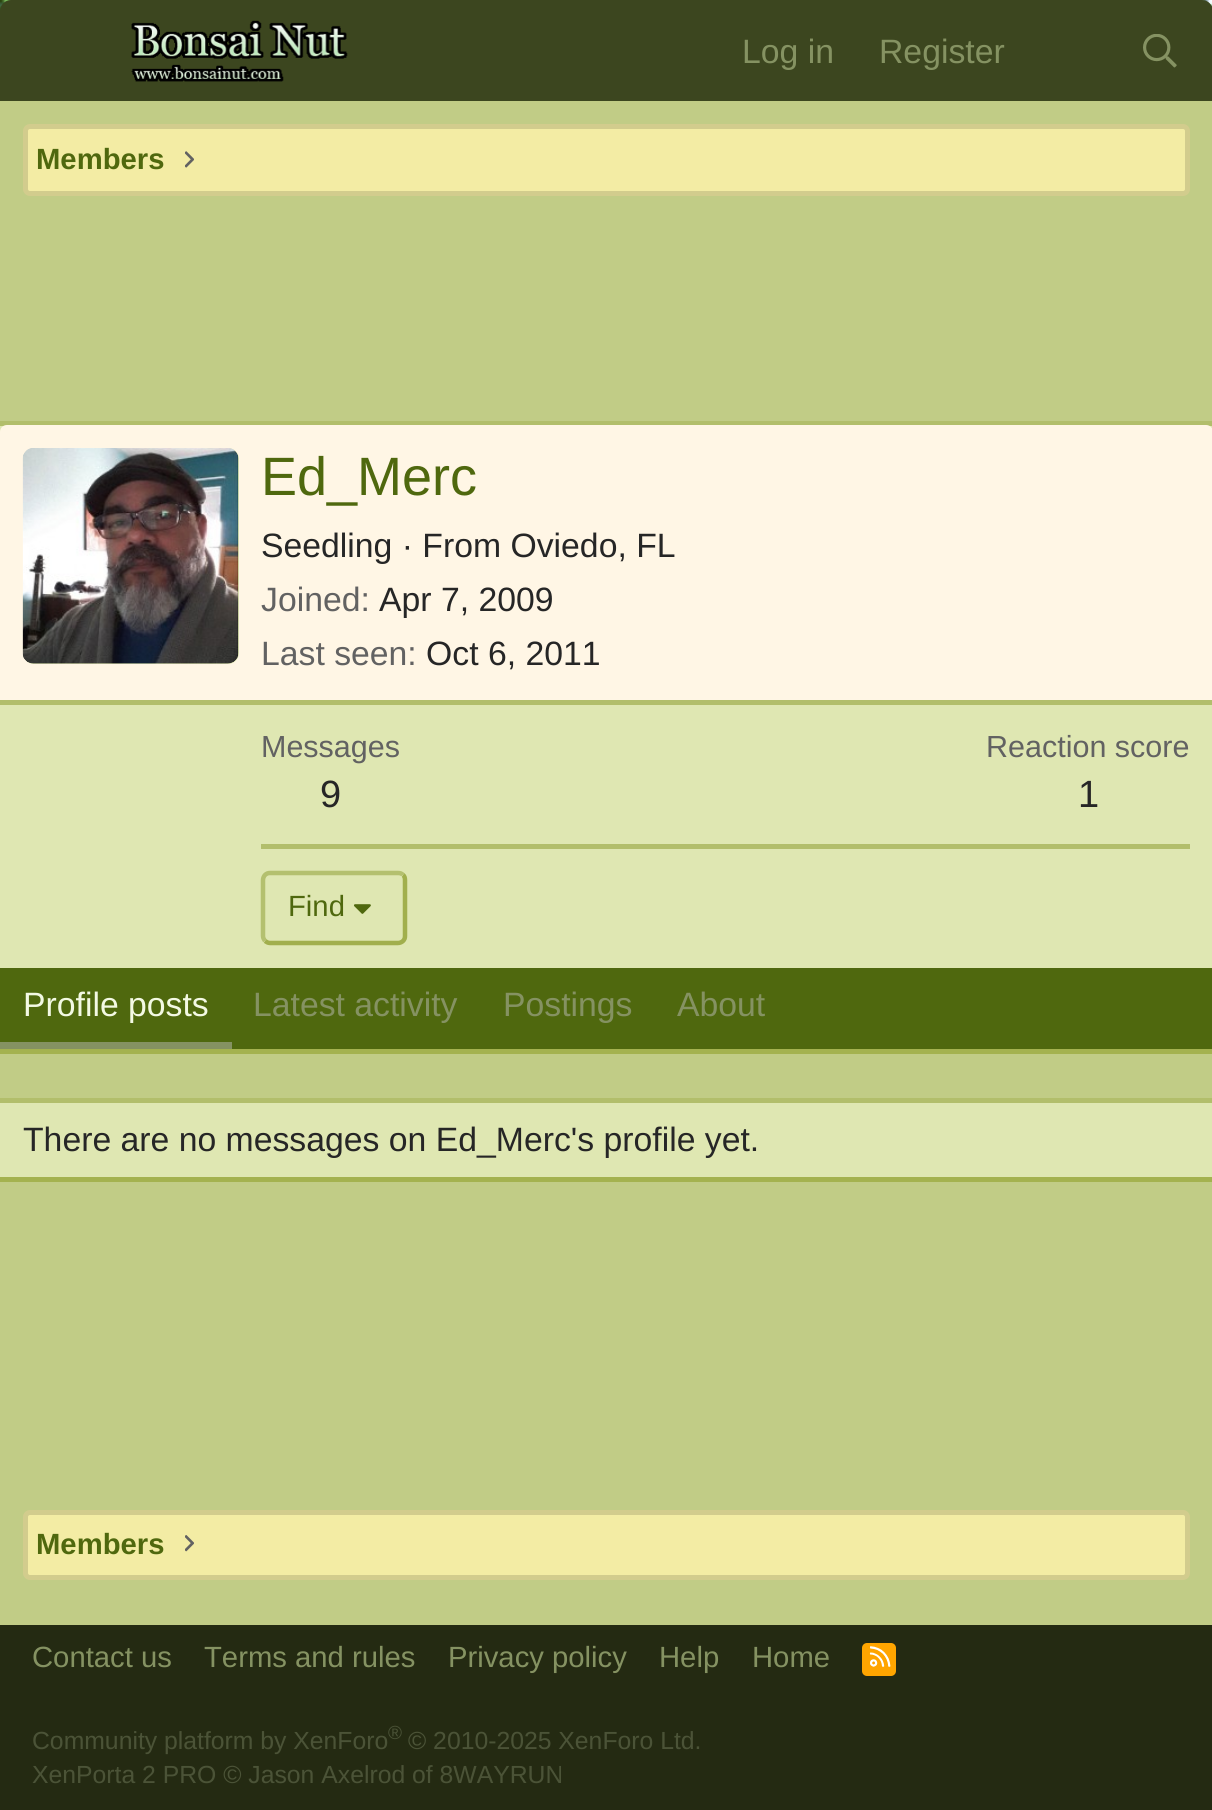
#include <cairo.h>
#include <math.h>
#include <stddef.h>

typedef struct { double x, y; const char *s; } line_t;
typedef struct { double x, y, w, h; unsigned color; } box_t;

static void ink(cairo_t *ctx, unsigned color) {
    cairo_set_source_rgb(ctx, (color >> 16) / 255.0, (color >> 8 & 255) / 255.0, (color & 255) / 255.0);
}

static void round_path(cairo_t *ctx, double x, double y, double w, double h, double r) {
    cairo_new_sub_path(ctx);
    cairo_arc(ctx, x + w - r, y + h - r, r, 0, M_PI / 2);
    cairo_arc(ctx, x + r, y + h - r, r, M_PI / 2, M_PI);
    cairo_arc(ctx, x + r, y + r, r, M_PI, 1.5 * M_PI);
    cairo_arc(ctx, x + w - r, y + r, r, 1.5 * M_PI, 2 * M_PI);
    cairo_close_path(ctx);
}

static void paste(cairo_t *ctx, const char *path, double x, double y, double w, double h) {
    cairo_surface_t *image = cairo_image_surface_create_from_png(path);
    cairo_save(ctx);
    cairo_set_source_surface(ctx, image, x, y);
    cairo_rectangle(ctx, x, y, w, h);
    cairo_fill(ctx);
    cairo_restore(ctx);
    cairo_surface_destroy(image);
}

int main(void) {
    cairo_surface_t *surface = cairo_image_surface_create(CAIRO_FORMAT_RGB24, 1212, 1810);
    cairo_t *ctx = cairo_create(surface);
    cairo_font_options_t *options = cairo_font_options_create();
    cairo_font_options_set_hint_metrics(options, CAIRO_HINT_METRICS_OFF);
    cairo_font_options_set_hint_style(options, CAIRO_HINT_STYLE_NONE);
    cairo_set_font_options(ctx, options);
    cairo_set_miter_limit(ctx, 4);
    ink(ctx, 0xFFFFFF);
    cairo_paint(ctx);
    paste(ctx, "media/1.png", 0, 0, 1212, 11);
    ink(ctx, 0x3C461F);
    cairo_new_path(ctx);
    cairo_move_to(ctx, 11, 0);
    cairo_line_to(ctx, 1202, 0);
    cairo_curve_to(ctx, 1208, 0, 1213, 5, 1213, 11);
    cairo_line_to(ctx, 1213, 101);
    cairo_line_to(ctx, 0, 101);
    cairo_line_to(ctx, 0, 11);
    cairo_curve_to(ctx, 0, 5, 5, 0, 11, 0);
    cairo_close_path(ctx);
    cairo_fill(ctx);
    paste(ctx, "media/2.png", 131, 20, 217, 62);
    cairo_select_font_face(ctx, "Liberation Sans", CAIRO_FONT_SLANT_NORMAL, CAIRO_FONT_WEIGHT_NORMAL);
    cairo_set_font_size(ctx, 33.75);
    ink(ctx, 0x859262);
    cairo_move_to(ctx, 742, 63);
    cairo_show_text(ctx, "Log in");
    cairo_move_to(ctx, 879, 63);
    cairo_show_text(ctx, "Register");
    paste(ctx, "media/3.png", 1143, 34, 34, 34);
    ink(ctx, 0xC1CC86);
    cairo_rectangle(ctx, 0, 101, 1212, 1524);
    cairo_fill(ctx);
    ink(ctx, 0xF3ECA4);
    round_path(ctx, 25.5, 126.5, 1162, 67, 4.5);
    cairo_fill_preserve(ctx);
    ink(ctx, 0xD2CC8D);
    cairo_set_line_width(ctx, 5);
    cairo_stroke(ctx);
    cairo_select_font_face(ctx, "Liberation Sans", CAIRO_FONT_SLANT_NORMAL, CAIRO_FONT_WEIGHT_BOLD);
    cairo_set_font_size(ctx, 29.25);
    ink(ctx, 0x4F680E);
    cairo_move_to(ctx, 36, 169);
    cairo_show_text(ctx, "Members");
    paste(ctx, "media/4.png", 185, 151, 9, 17);
    {
        static const box_t items[] = {
            {0, 426, 1212, 542, 0xDFE7B2},
            {0, 421, 1212, 5, 0xB2BE6B},
            {0, 1049, 1212, 5, 0xA4B24F},
        };
        for (size_t i = 0; i < sizeof items / sizeof *items; i++) {
            ink(ctx, items[i].color);
            cairo_rectangle(ctx, items[i].x, items[i].y, items[i].w, items[i].h);
            cairo_fill(ctx);
        }
    }
    ink(ctx, 0xFFF6E5);
    cairo_new_path(ctx);
    cairo_move_to(ctx, 7, 425);
    cairo_line_to(ctx, 1206, 425);
    cairo_curve_to(ctx, 1210, 425, 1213, 428, 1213, 432);
    cairo_line_to(ctx, 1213, 704);
    cairo_line_to(ctx, 0, 704);
    cairo_line_to(ctx, 0, 432);
    cairo_curve_to(ctx, 0, 428, 3, 425, 7, 425);
    cairo_close_path(ctx);
    cairo_fill(ctx);
    ink(ctx, 0xB2BE6B);
    cairo_rectangle(ctx, 0, 700, 1212, 5);
    cairo_fill(ctx);
    ink(ctx, 0xDFE7B2);
    round_path(ctx, 23, 448, 216, 216, 11);
    cairo_fill(ctx);
    paste(ctx, "media/5.png", 22, 448, 217, 216);
    cairo_select_font_face(ctx, "Liberation Sans", CAIRO_FONT_SLANT_NORMAL, CAIRO_FONT_WEIGHT_NORMAL);
    cairo_set_font_size(ctx, 54);
    ink(ctx, 0x4F680E);
    cairo_move_to(ctx, 261, 495);
    cairo_show_text(ctx, "Ed_Merc");
    cairo_set_font_size(ctx, 33.75);
    ink(ctx, 0x262626);
    cairo_move_to(ctx, 261, 557);
    cairo_show_text(ctx, "Seedling · From Oviedo, FL");
    ink(ctx, 0x626262);
    cairo_move_to(ctx, 261, 611);
    cairo_show_text(ctx, "Joined:");
    ink(ctx, 0x262626);
    cairo_move_to(ctx, 379, 611);
    cairo_show_text(ctx, "Apr 7, 2009");
    ink(ctx, 0x626262);
    cairo_move_to(ctx, 261, 665);
    cairo_show_text(ctx, "Last seen:");
    ink(ctx, 0x262626);
    cairo_move_to(ctx, 426, 665);
    cairo_show_text(ctx, "Oct 6, 2011");
    cairo_set_font_size(ctx, 30.5);
    ink(ctx, 0x626262);
    cairo_move_to(ctx, 261, 757);
    cairo_show_text(ctx, "Messages");
    cairo_set_font_size(ctx, 38);
    ink(ctx, 0x262626);
    cairo_move_to(ctx, 320, 807);
    cairo_show_text(ctx, "9");
    cairo_set_font_size(ctx, 30.5);
    ink(ctx, 0x626262);
    cairo_move_to(ctx, 986, 757);
    cairo_show_text(ctx, "Reaction score");
    cairo_set_font_size(ctx, 38);
    ink(ctx, 0x262626);
    cairo_move_to(ctx, 1078, 807);
    cairo_show_text(ctx, "1");
    ink(ctx, 0xB2BE6B);
    cairo_rectangle(ctx, 261, 844, 929, 5);
    cairo_fill(ctx);
    cairo_new_path(ctx);
    cairo_move_to(ctx, 403, 875);
    cairo_curve_to(ctx, 404.5, 876, 405, 878, 405, 880);
    cairo_line_to(ctx, 405, 936);
    cairo_curve_to(ctx, 405, 938, 404.5, 939.5, 403, 941);
    cairo_curve_to(ctx, 402, 942, 400, 943, 398, 943);
    cairo_line_to(ctx, 270, 943);
    cairo_curve_to(ctx, 268, 943, 266.5, 942, 265, 941);
    ink(ctx, 0xA1AF4D);
    cairo_set_line_width(ctx, 4.5);
    cairo_stroke(ctx);
    cairo_new_path(ctx);
    cairo_move_to(ctx, 265, 941);
    cairo_curve_to(ctx, 264, 939.5, 263, 938, 263, 936);
    cairo_line_to(ctx, 263, 880);
    cairo_curve_to(ctx, 263, 878, 264, 876, 265, 875);
    cairo_curve_to(ctx, 266.5, 873.5, 268, 873, 270, 873);
    cairo_line_to(ctx, 398, 873);
    cairo_curve_to(ctx, 400, 873, 402, 873.5, 403, 875);
    ink(ctx, 0xB4C06F);
    cairo_stroke(ctx);
    cairo_set_font_size(ctx, 29.25);
    ink(ctx, 0x4F680E);
    cairo_move_to(ctx, 288, 916);
    cairo_show_text(ctx, "Find");
    paste(ctx, "media/6.png", 353, 904, 18, 10);
    cairo_rectangle(ctx, 0, 968, 1212, 81);
    cairo_fill(ctx);
    ink(ctx, 0x859262);
    cairo_rectangle(ctx, 0, 1042, 232, 7);
    cairo_fill(ctx);
    cairo_set_font_size(ctx, 33.75);
    ink(ctx, 0xF3F9E3);
    cairo_move_to(ctx, 23, 1016);
    cairo_show_text(ctx, "Profile posts");
    ink(ctx, 0x859262);
    {
        static const line_t items[] = {
            {253, 1016, "Latest activity"},
            {503, 1016, "Postings"},
            {677, 1016, "About"},
        };
        for (size_t i = 0; i < sizeof items / sizeof *items; i++) {
            cairo_move_to(ctx, items[i].x, items[i].y);
            cairo_show_text(ctx, items[i].s);
        }
    }
    {
        static const box_t items[] = {
            {0, 1103, 1212, 74, 0xDFE7B2},
            {0, 1098, 1212, 5, 0xB2BE6B},
            {0, 1177, 1212, 5, 0xA4B24F},
        };
        for (size_t i = 0; i < sizeof items / sizeof *items; i++) {
            ink(ctx, items[i].color);
            cairo_rectangle(ctx, items[i].x, items[i].y, items[i].w, items[i].h);
            cairo_fill(ctx);
        }
    }
    ink(ctx, 0x262626);
    cairo_move_to(ctx, 23, 1151);
    cairo_show_text(ctx, "There are no messages on Ed_Merc's profile yet.");
    ink(ctx, 0xF3ECA4);
    round_path(ctx, 25.5, 1512.5, 1162, 65, 4.5);
    cairo_fill_preserve(ctx);
    ink(ctx, 0xD2CC8D);
    cairo_set_line_width(ctx, 5);
    cairo_stroke(ctx);
    cairo_select_font_face(ctx, "Liberation Sans", CAIRO_FONT_SLANT_NORMAL, CAIRO_FONT_WEIGHT_BOLD);
    cairo_set_font_size(ctx, 29.25);
    ink(ctx, 0x4F680E);
    cairo_move_to(ctx, 36, 1554);
    cairo_show_text(ctx, "Members");
    paste(ctx, "media/7.png", 185, 1535, 9, 17);
    ink(ctx, 0x242A12);
    cairo_rectangle(ctx, 0, 1625, 1212, 185);
    cairo_fill(ctx);
    cairo_select_font_face(ctx, "Liberation Sans", CAIRO_FONT_SLANT_NORMAL, CAIRO_FONT_WEIGHT_NORMAL);
    ink(ctx, 0x859262);
    {
        static const line_t items[] = {
            {32, 1667, "Contact us"},
            {204, 1667, "Terms and rules"},
            {448, 1667, "Privacy policy"},
            {659, 1667, "Help"},
            {752, 1667, "Home"},
        };
        for (size_t i = 0; i < sizeof items / sizeof *items; i++) {
            cairo_move_to(ctx, items[i].x, items[i].y);
            cairo_show_text(ctx, items[i].s);
        }
    }
    ink(ctx, 0xFFA500);
    round_path(ctx, 862, 1643, 34, 33, 5);
    cairo_fill(ctx);
    paste(ctx, "media/8.png", 869, 1646, 22, 21);
    cairo_set_font_size(ctx, 24.75);
    ink(ctx, 0x4B5337);
    cairo_move_to(ctx, 32, 1749);
    cairo_show_text(ctx, "Community platform by XenForo");
    cairo_set_font_size(ctx, 19);
    cairo_move_to(ctx, 388, 1739);
    cairo_show_text(ctx, "®");
    cairo_set_font_size(ctx, 24.75);
    cairo_move_to(ctx, 408, 1749);
    cairo_show_text(ctx, "© 2010-2025 XenForo Ltd.");
    cairo_move_to(ctx, 32, 1783);
    cairo_show_text(ctx, "XenPorta 2 PRO © Jason Axelrod of 8WAYRUN");
    cairo_surface_write_to_png(surface, "image.png");
    cairo_font_options_destroy(options);
    cairo_destroy(ctx);
    cairo_surface_destroy(surface);
    return 0;
}
